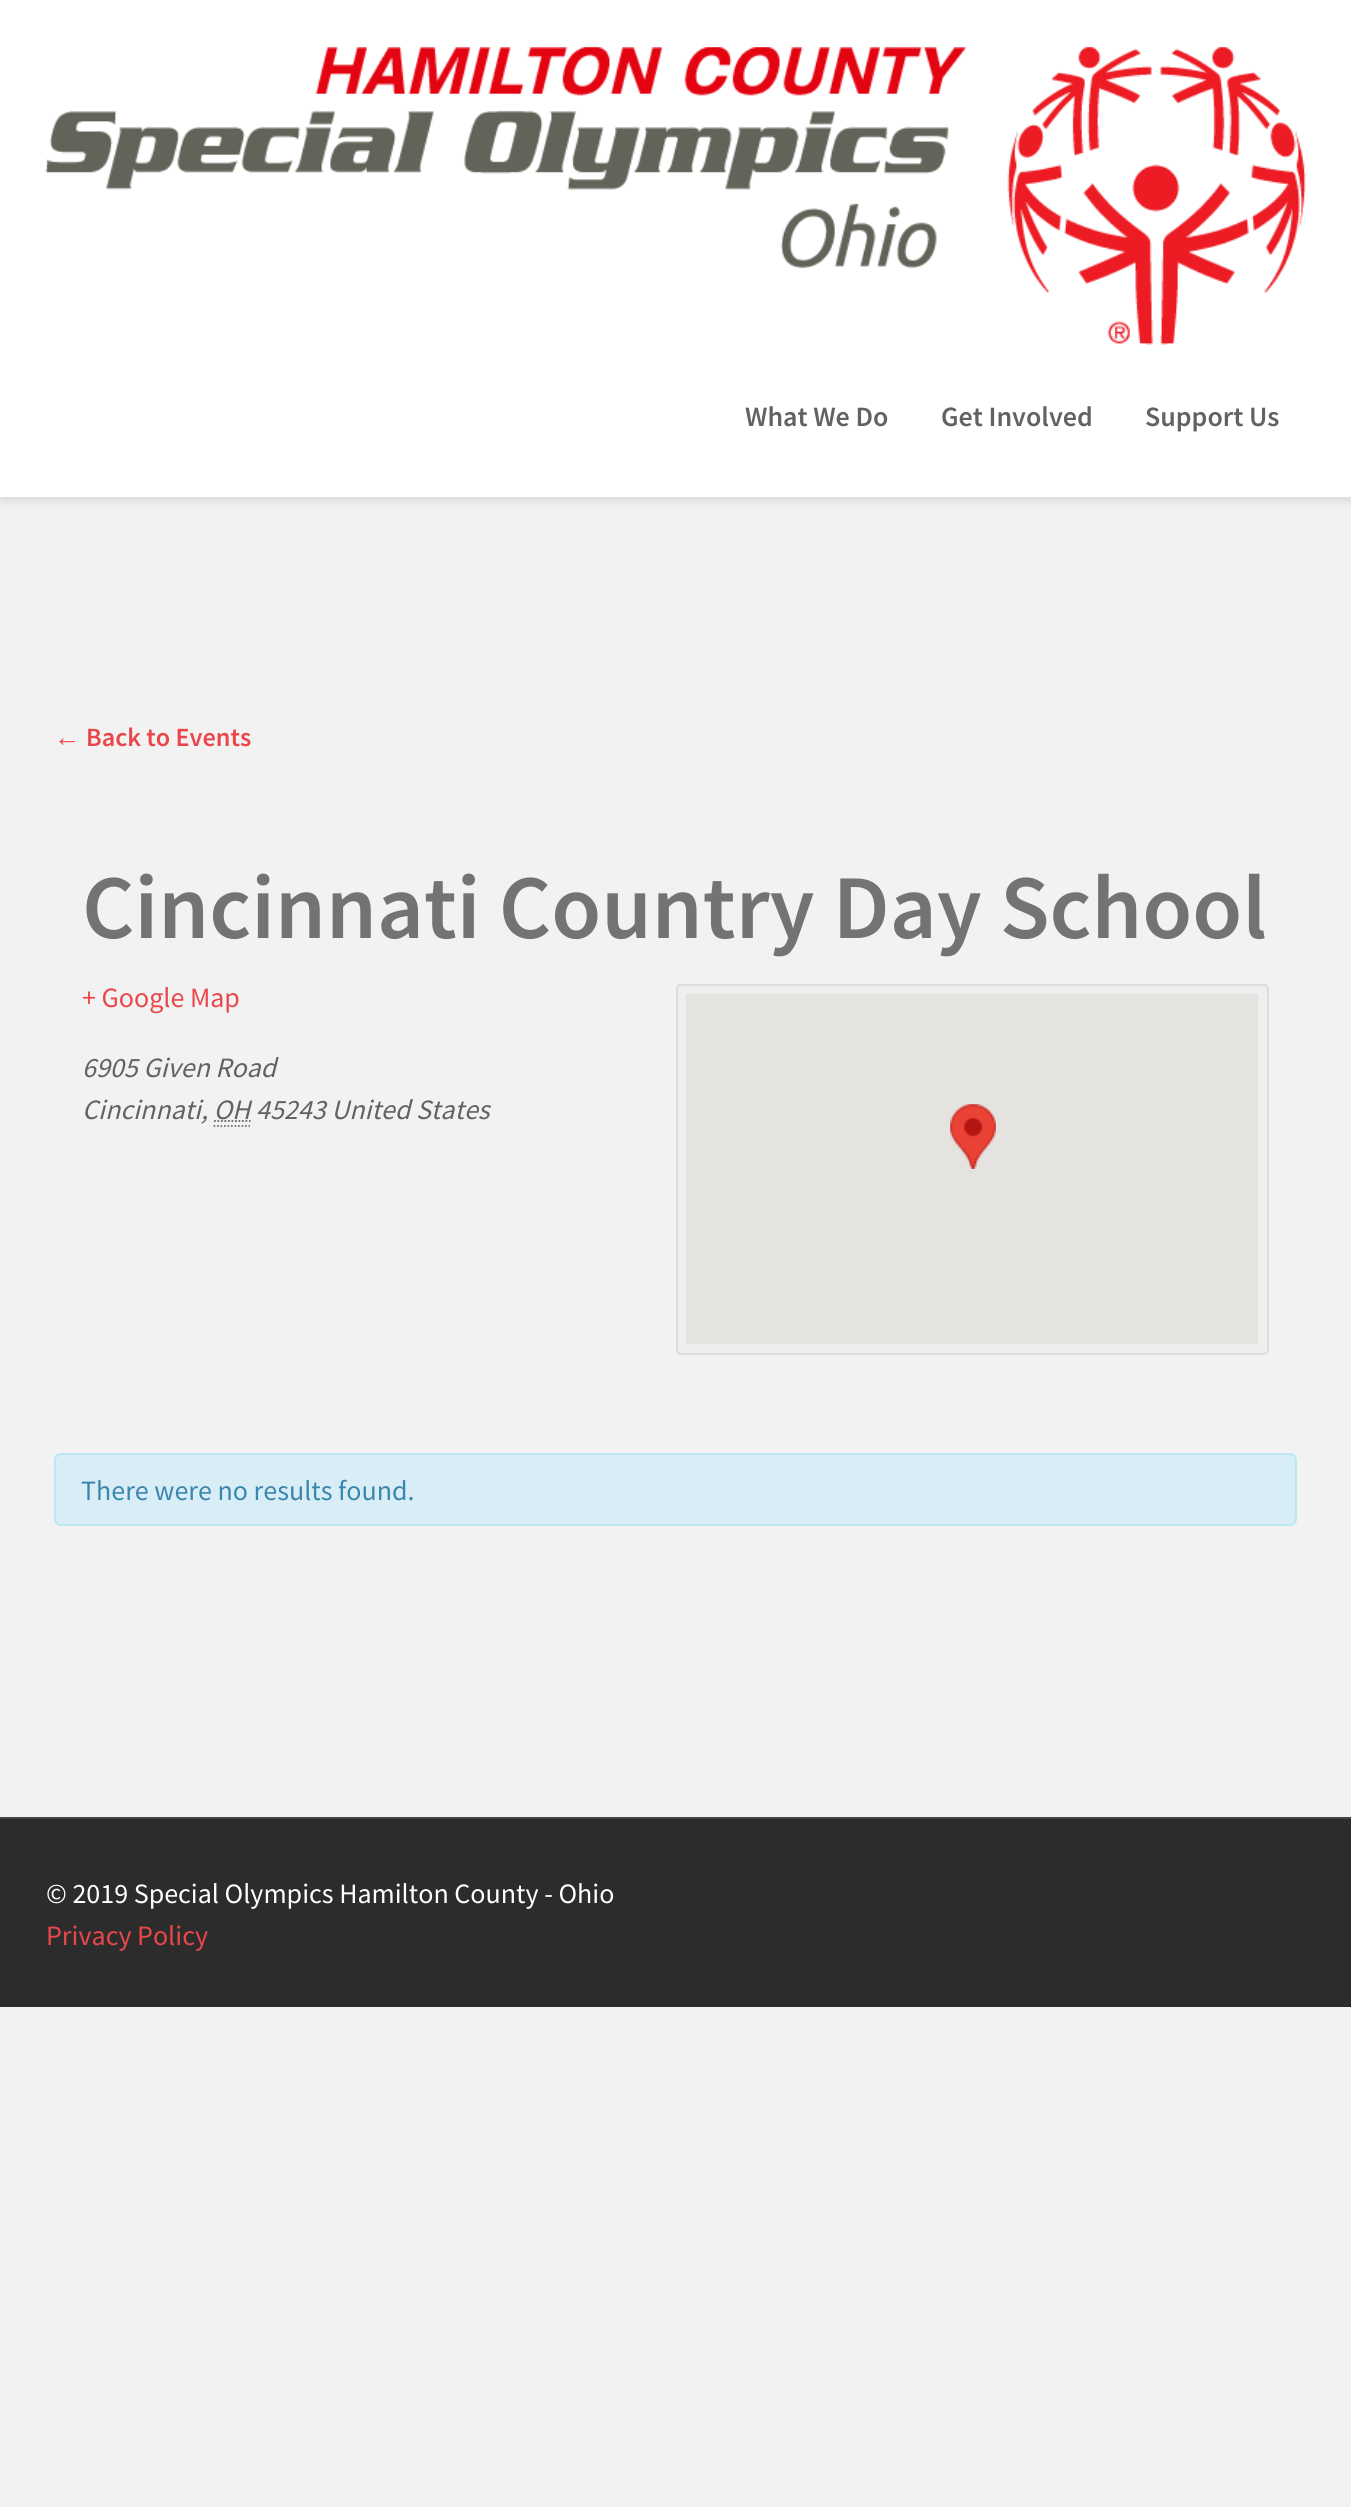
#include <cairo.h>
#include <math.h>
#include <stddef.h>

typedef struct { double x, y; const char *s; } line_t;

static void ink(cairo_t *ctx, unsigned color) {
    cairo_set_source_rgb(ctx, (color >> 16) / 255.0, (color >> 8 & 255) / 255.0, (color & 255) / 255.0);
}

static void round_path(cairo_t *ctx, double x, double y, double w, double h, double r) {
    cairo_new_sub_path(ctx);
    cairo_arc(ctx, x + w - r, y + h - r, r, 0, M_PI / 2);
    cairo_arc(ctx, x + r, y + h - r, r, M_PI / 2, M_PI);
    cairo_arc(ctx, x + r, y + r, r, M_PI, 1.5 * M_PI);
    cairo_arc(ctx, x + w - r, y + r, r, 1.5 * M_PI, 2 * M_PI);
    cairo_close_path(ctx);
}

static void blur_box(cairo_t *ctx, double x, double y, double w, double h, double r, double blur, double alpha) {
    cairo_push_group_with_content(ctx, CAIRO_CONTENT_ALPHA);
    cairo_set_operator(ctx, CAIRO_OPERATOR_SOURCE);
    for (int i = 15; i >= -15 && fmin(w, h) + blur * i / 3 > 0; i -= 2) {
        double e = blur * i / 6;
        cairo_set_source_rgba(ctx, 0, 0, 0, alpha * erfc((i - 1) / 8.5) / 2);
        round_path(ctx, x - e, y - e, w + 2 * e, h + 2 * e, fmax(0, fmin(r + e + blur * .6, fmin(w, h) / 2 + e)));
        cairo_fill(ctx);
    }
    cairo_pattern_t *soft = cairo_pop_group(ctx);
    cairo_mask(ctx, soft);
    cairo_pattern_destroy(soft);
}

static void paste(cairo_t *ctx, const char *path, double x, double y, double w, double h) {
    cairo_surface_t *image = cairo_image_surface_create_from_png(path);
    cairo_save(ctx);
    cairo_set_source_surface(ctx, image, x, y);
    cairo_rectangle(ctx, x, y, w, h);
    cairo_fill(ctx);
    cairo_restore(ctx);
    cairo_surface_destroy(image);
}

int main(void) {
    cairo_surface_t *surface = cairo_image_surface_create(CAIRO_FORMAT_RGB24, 1351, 2507);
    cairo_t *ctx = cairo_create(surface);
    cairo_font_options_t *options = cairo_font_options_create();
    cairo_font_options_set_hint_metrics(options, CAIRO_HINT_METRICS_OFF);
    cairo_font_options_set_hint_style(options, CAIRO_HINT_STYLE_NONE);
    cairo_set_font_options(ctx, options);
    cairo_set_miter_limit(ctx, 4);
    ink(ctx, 0xF2F2F2);
    cairo_paint(ctx);
    ink(ctx, 0x000000);
    blur_box(ctx, 0, 5, 1351, 497, 0, 4.5, 0.1);
    ink(ctx, 0xFFFFFF);
    cairo_rectangle(ctx, 0, 0, 1351, 497);
    cairo_fill(ctx);
    paste(ctx, "media/1.png", 45, 47, 1261, 298);
    cairo_select_font_face(ctx, "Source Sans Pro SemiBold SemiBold", CAIRO_FONT_SLANT_NORMAL, CAIRO_FONT_WEIGHT_NORMAL);
    cairo_set_font_size(ctx, 28);
    ink(ctx, 0x626262);
    {
        static const line_t items[] = {
            {745, 426, "What We Do"},
            {941, 426, "Get Involved"},
            {1145, 426, "Support Us"},
        };
        for (size_t i = 0; i < sizeof items / sizeof *items; i++) {
            cairo_move_to(ctx, items[i].x, items[i].y);
            cairo_show_text(ctx, items[i].s);
        }
    }
    cairo_select_font_face(ctx, "Liberation Sans", CAIRO_FONT_SLANT_NORMAL, CAIRO_FONT_WEIGHT_BOLD);
    cairo_set_font_size(ctx, 26.25);
    ink(ctx, 0xEB464A);
    cairo_move_to(ctx, 54, 746);
    cairo_show_text(ctx, "←");
    cairo_select_font_face(ctx, "Source Sans Pro SemiBold SemiBold", CAIRO_FONT_SLANT_NORMAL, CAIRO_FONT_WEIGHT_NORMAL);
    cairo_move_to(ctx, 86, 746);
    cairo_show_text(ctx, "Back to Events");
    cairo_set_font_size(ctx, 91);
    ink(ctx, 0x737373);
    cairo_move_to(ctx, 82, 938);
    cairo_show_text(ctx, "Cincinnati Country Day School");
    cairo_select_font_face(ctx, "Source Sans Pro", CAIRO_FONT_SLANT_NORMAL, CAIRO_FONT_WEIGHT_NORMAL);
    cairo_set_font_size(ctx, 28);
    ink(ctx, 0xEB464A);
    cairo_move_to(ctx, 82, 1007);
    cairo_show_text(ctx, "+ Google Map");
    cairo_select_font_face(ctx, "Source Sans Pro", CAIRO_FONT_SLANT_ITALIC, CAIRO_FONT_WEIGHT_NORMAL);
    ink(ctx, 0x626262);
    cairo_move_to(ctx, 82, 1077);
    cairo_show_text(ctx, "6905 Given Road");
    cairo_move_to(ctx, 82, 1119);
    cairo_show_text(ctx, "Cincinnati, OH 45243 United States");
    cairo_new_path(ctx);
    cairo_move_to(ctx, 213.5, 1126);
    cairo_line_to(ctx, 250, 1126);
    ink(ctx, 0x777777);
    cairo_set_line_width(ctx, 1.8);
    cairo_set_dash(ctx, (double[]){1.75, 1.75}, 2, 0);
    cairo_stroke(ctx);
    cairo_new_path(ctx);
    cairo_move_to(ctx, 214, 1121);
    cairo_line_to(ctx, 250.5, 1121);
    ink(ctx, 0x626262);
    cairo_stroke(ctx);
    ink(ctx, 0xEEEEEE);
    round_path(ctx, 677, 985, 591, 369, 4);
    cairo_fill_preserve(ctx);
    ink(ctx, 0xDDDDDD);
    cairo_set_line_width(ctx, 2);
    cairo_set_dash(ctx, NULL, 0, 0);
    cairo_stroke(ctx);
    ink(ctx, 0xE5E3DF);
    cairo_rectangle(ctx, 686, 994, 572, 350);
    cairo_fill(ctx);
    paste(ctx, "media/2.png", 950, 1104, 46, 65);
    ink(ctx, 0xD9EDF7);
    round_path(ctx, 55, 1454, 1241, 71, 6);
    cairo_fill_preserve(ctx);
    ink(ctx, 0xBCE8F1);
    cairo_stroke(ctx);
    cairo_select_font_face(ctx, "Source Sans Pro", CAIRO_FONT_SLANT_NORMAL, CAIRO_FONT_WEIGHT_NORMAL);
    ink(ctx, 0x3A87AD);
    cairo_move_to(ctx, 81, 1500);
    cairo_show_text(ctx, "There were no results found.");
    ink(ctx, 0x2C2C2C);
    cairo_rectangle(ctx, 0, 1819, 1351, 188);
    cairo_fill(ctx);
    ink(ctx, 0x444444);
    cairo_rectangle(ctx, 0, 1817, 1351, 2);
    cairo_fill(ctx);
    ink(ctx, 0xFFFFFF);
    cairo_move_to(ctx, 46, 1903);
    cairo_show_text(ctx, "© 2019 Special Olympics Hamilton County - Ohio");
    ink(ctx, 0xEB464A);
    cairo_move_to(ctx, 46, 1945);
    cairo_show_text(ctx, "Privacy Policy");
    cairo_surface_write_to_png(surface, "image.png");
    cairo_font_options_destroy(options);
    cairo_destroy(ctx);
    cairo_surface_destroy(surface);
    return 0;
}
